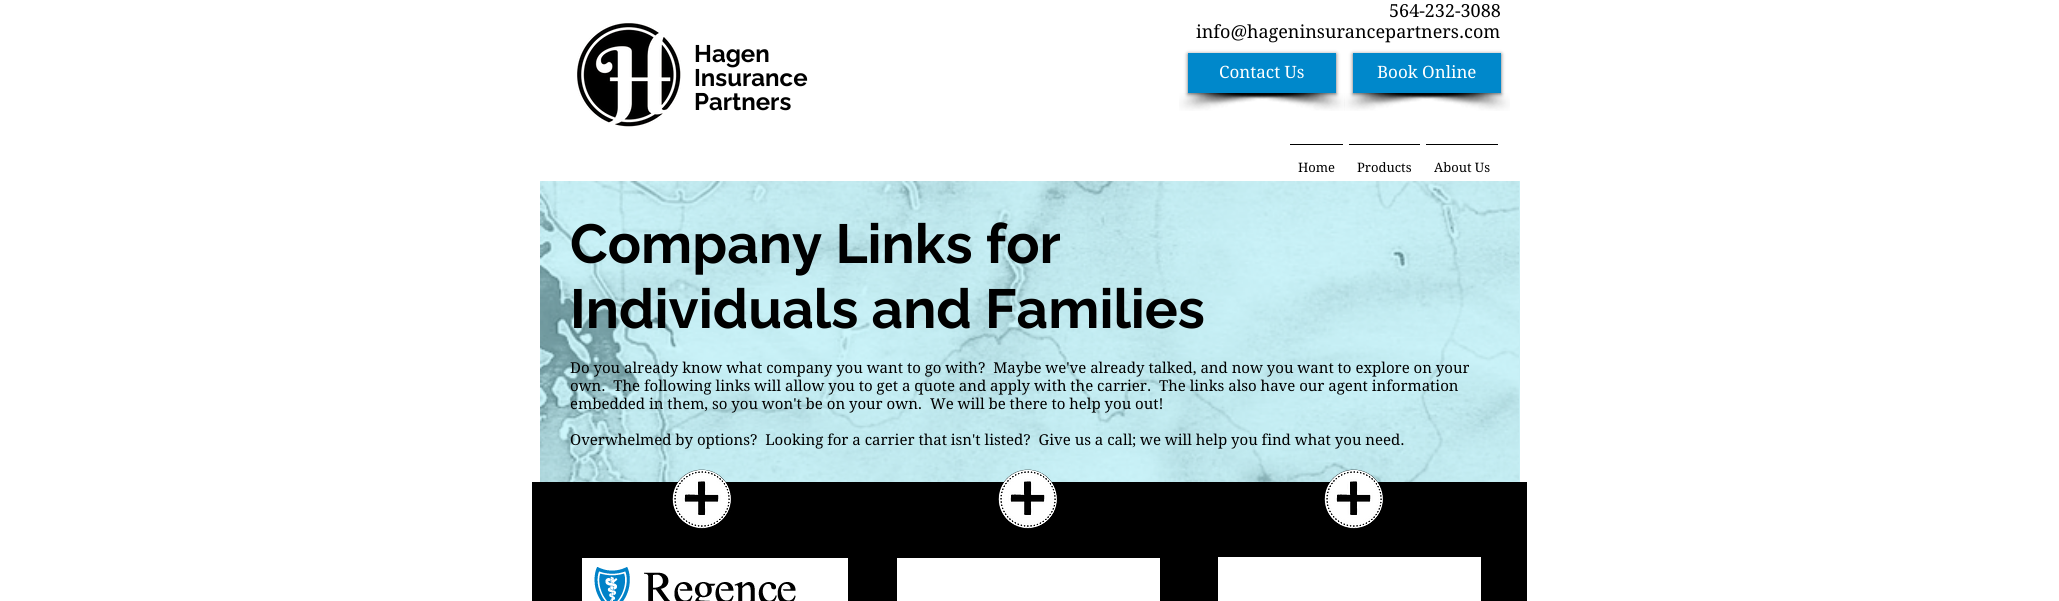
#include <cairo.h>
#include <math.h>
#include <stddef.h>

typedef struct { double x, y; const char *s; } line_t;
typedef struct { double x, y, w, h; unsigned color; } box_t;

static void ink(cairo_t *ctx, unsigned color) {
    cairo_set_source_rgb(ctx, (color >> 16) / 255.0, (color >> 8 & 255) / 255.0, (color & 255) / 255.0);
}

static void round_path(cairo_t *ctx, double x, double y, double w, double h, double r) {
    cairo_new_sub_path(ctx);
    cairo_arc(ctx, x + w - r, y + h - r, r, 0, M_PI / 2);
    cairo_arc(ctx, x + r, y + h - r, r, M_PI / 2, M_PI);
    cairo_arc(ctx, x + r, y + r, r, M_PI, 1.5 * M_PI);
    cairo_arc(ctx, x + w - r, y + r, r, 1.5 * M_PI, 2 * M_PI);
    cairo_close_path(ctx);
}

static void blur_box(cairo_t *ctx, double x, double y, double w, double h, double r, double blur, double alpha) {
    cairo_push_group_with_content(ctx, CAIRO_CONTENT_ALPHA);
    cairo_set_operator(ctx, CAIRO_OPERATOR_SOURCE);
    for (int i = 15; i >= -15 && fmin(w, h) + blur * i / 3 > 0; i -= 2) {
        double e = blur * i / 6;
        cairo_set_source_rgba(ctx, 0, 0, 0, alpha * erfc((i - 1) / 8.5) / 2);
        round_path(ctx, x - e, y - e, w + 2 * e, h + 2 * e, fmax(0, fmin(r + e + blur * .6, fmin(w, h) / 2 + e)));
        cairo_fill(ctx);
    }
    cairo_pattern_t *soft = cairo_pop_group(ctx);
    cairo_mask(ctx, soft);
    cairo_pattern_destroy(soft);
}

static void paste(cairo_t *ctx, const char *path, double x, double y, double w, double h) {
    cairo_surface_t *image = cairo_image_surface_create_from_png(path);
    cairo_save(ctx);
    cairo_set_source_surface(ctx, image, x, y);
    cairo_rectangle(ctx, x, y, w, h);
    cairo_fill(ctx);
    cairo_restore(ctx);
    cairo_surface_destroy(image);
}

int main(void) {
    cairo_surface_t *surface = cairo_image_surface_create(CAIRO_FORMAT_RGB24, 2059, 601);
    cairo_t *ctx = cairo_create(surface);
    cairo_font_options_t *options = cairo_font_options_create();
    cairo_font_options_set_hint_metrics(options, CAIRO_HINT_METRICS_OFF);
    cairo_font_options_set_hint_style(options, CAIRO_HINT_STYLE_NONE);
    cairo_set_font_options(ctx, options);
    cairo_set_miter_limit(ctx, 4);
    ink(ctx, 0xFFFFFF);
    cairo_paint(ctx);
    paste(ctx, "media/1.png", 577, 23, 104, 104);
    cairo_select_font_face(ctx, "Raleway", CAIRO_FONT_SLANT_NORMAL, CAIRO_FONT_WEIGHT_BOLD);
    cairo_set_font_size(ctx, 24);
    ink(ctx, 0x000000);
    {
        static const line_t items[] = {
            {694, 62, "Hagen"},
            {694, 86, "Insurance"},
            {694, 110, "Partners"},
        };
        for (size_t i = 0; i < sizeof items / sizeof *items; i++) {
            cairo_move_to(ctx, items[i].x, items[i].y);
            cairo_show_text(ctx, items[i].s);
        }
    }
    cairo_select_font_face(ctx, "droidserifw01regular", CAIRO_FONT_SLANT_NORMAL, CAIRO_FONT_WEIGHT_NORMAL);
    cairo_set_font_size(ctx, 18);
    cairo_move_to(ctx, 1389, 17);
    cairo_show_text(ctx, "564-232-3088");
    cairo_move_to(ctx, 1196, 38);
    cairo_show_text(ctx, "info@hageninsurancepartners.com");
    paste(ctx, "media/2.png", 1179, 93, 154, 18);
    paste(ctx, "media/3.png", 1191, 93, 154, 18);
    ink(ctx, 0x000000);
    blur_box(ctx, 1188, 54, 148, 40, 0, 2, 0.6);
    ink(ctx, 0x0088CB);
    cairo_rectangle(ctx, 1188, 53, 148, 40);
    cairo_fill(ctx);
    cairo_set_font_size(ctx, 17);
    ink(ctx, 0xFFFFFF);
    cairo_move_to(ctx, 1219, 78);
    cairo_show_text(ctx, "Contact Us");
    paste(ctx, "media/4.png", 1344, 93, 154, 18);
    paste(ctx, "media/3.png", 1356, 93, 154, 18);
    ink(ctx, 0x000000);
    blur_box(ctx, 1353, 54, 148, 40, 0, 2, 0.6);
    ink(ctx, 0x0088CB);
    cairo_rectangle(ctx, 1353, 53, 148, 40);
    cairo_fill(ctx);
    ink(ctx, 0xFFFFFF);
    cairo_move_to(ctx, 1377, 78);
    cairo_show_text(ctx, "Book Online");
    ink(ctx, 0x000000);
    cairo_rectangle(ctx, 1290, 144, 53, 1);
    cairo_fill(ctx);
    cairo_set_font_size(ctx, 13);
    cairo_move_to(ctx, 1298, 172);
    cairo_show_text(ctx, "Home");
    cairo_rectangle(ctx, 1349, 144, 71, 1);
    cairo_fill(ctx);
    cairo_move_to(ctx, 1357, 172);
    cairo_show_text(ctx, "Products");
    cairo_rectangle(ctx, 1426, 144, 72, 1);
    cairo_fill(ctx);
    cairo_move_to(ctx, 1434, 172);
    cairo_show_text(ctx, "About Us");
    paste(ctx, "media/5.png", 540, 181, 979, 301);
    cairo_select_font_face(ctx, "Raleway", CAIRO_FONT_SLANT_NORMAL, CAIRO_FONT_WEIGHT_BOLD);
    cairo_set_font_size(ctx, 55);
    cairo_move_to(ctx, 570, 263);
    cairo_show_text(ctx, "Company Links for");
    cairo_move_to(ctx, 570, 328);
    cairo_show_text(ctx, "Individuals and Families");
    cairo_select_font_face(ctx, "droidserifw01regular", CAIRO_FONT_SLANT_NORMAL, CAIRO_FONT_WEIGHT_NORMAL);
    cairo_set_font_size(ctx, 15);
    {
        static const line_t items[] = {
            {570, 373, "Do you already know what company you want to go with?  Maybe we've already talked, and now you want to explore on your"},
            {570, 391, "own.  The following links will allow you to get a quote and apply with the carrier.  The links also have our agent information"},
            {570, 409, "embedded in them, so you won't be on your own.  We will be there to help you out!"},
            {570, 445, "Overwhelmed by options?  Looking for a carrier that isn't listed?  Give us a call; we will help you find what you need."},
        };
        for (size_t i = 0; i < sizeof items / sizeof *items; i++) {
            cairo_move_to(ctx, items[i].x, items[i].y);
            cairo_show_text(ctx, items[i].s);
        }
    }
    cairo_rectangle(ctx, 532, 482, 995, 119);
    cairo_fill(ctx);
    paste(ctx, "media/6.png", 672, 469, 59, 60);
    paste(ctx, "media/7.png", 998, 469, 59, 60);
    paste(ctx, "media/8.png", 1324, 469, 59, 60);
    ink(ctx, 0xFFFFFF);
    cairo_rectangle(ctx, 582, 558, 266, 43);
    cairo_fill(ctx);
    paste(ctx, "media/9.png", 594, 567, 202, 34);
    {
        static const box_t items[] = {
            {897, 558, 263, 43, 0xFFFFFF},
            {1218, 557, 263, 44, 0xFFFFFF},
            {1519, 181, 1, 301, 0xC6EFF5},
        };
        for (size_t i = 0; i < sizeof items / sizeof *items; i++) {
            ink(ctx, items[i].color);
            cairo_rectangle(ctx, items[i].x, items[i].y, items[i].w, items[i].h);
            cairo_fill(ctx);
        }
    }
    cairo_surface_write_to_png(surface, "image.png");
    cairo_font_options_destroy(options);
    cairo_destroy(ctx);
    cairo_surface_destroy(surface);
    return 0;
}
